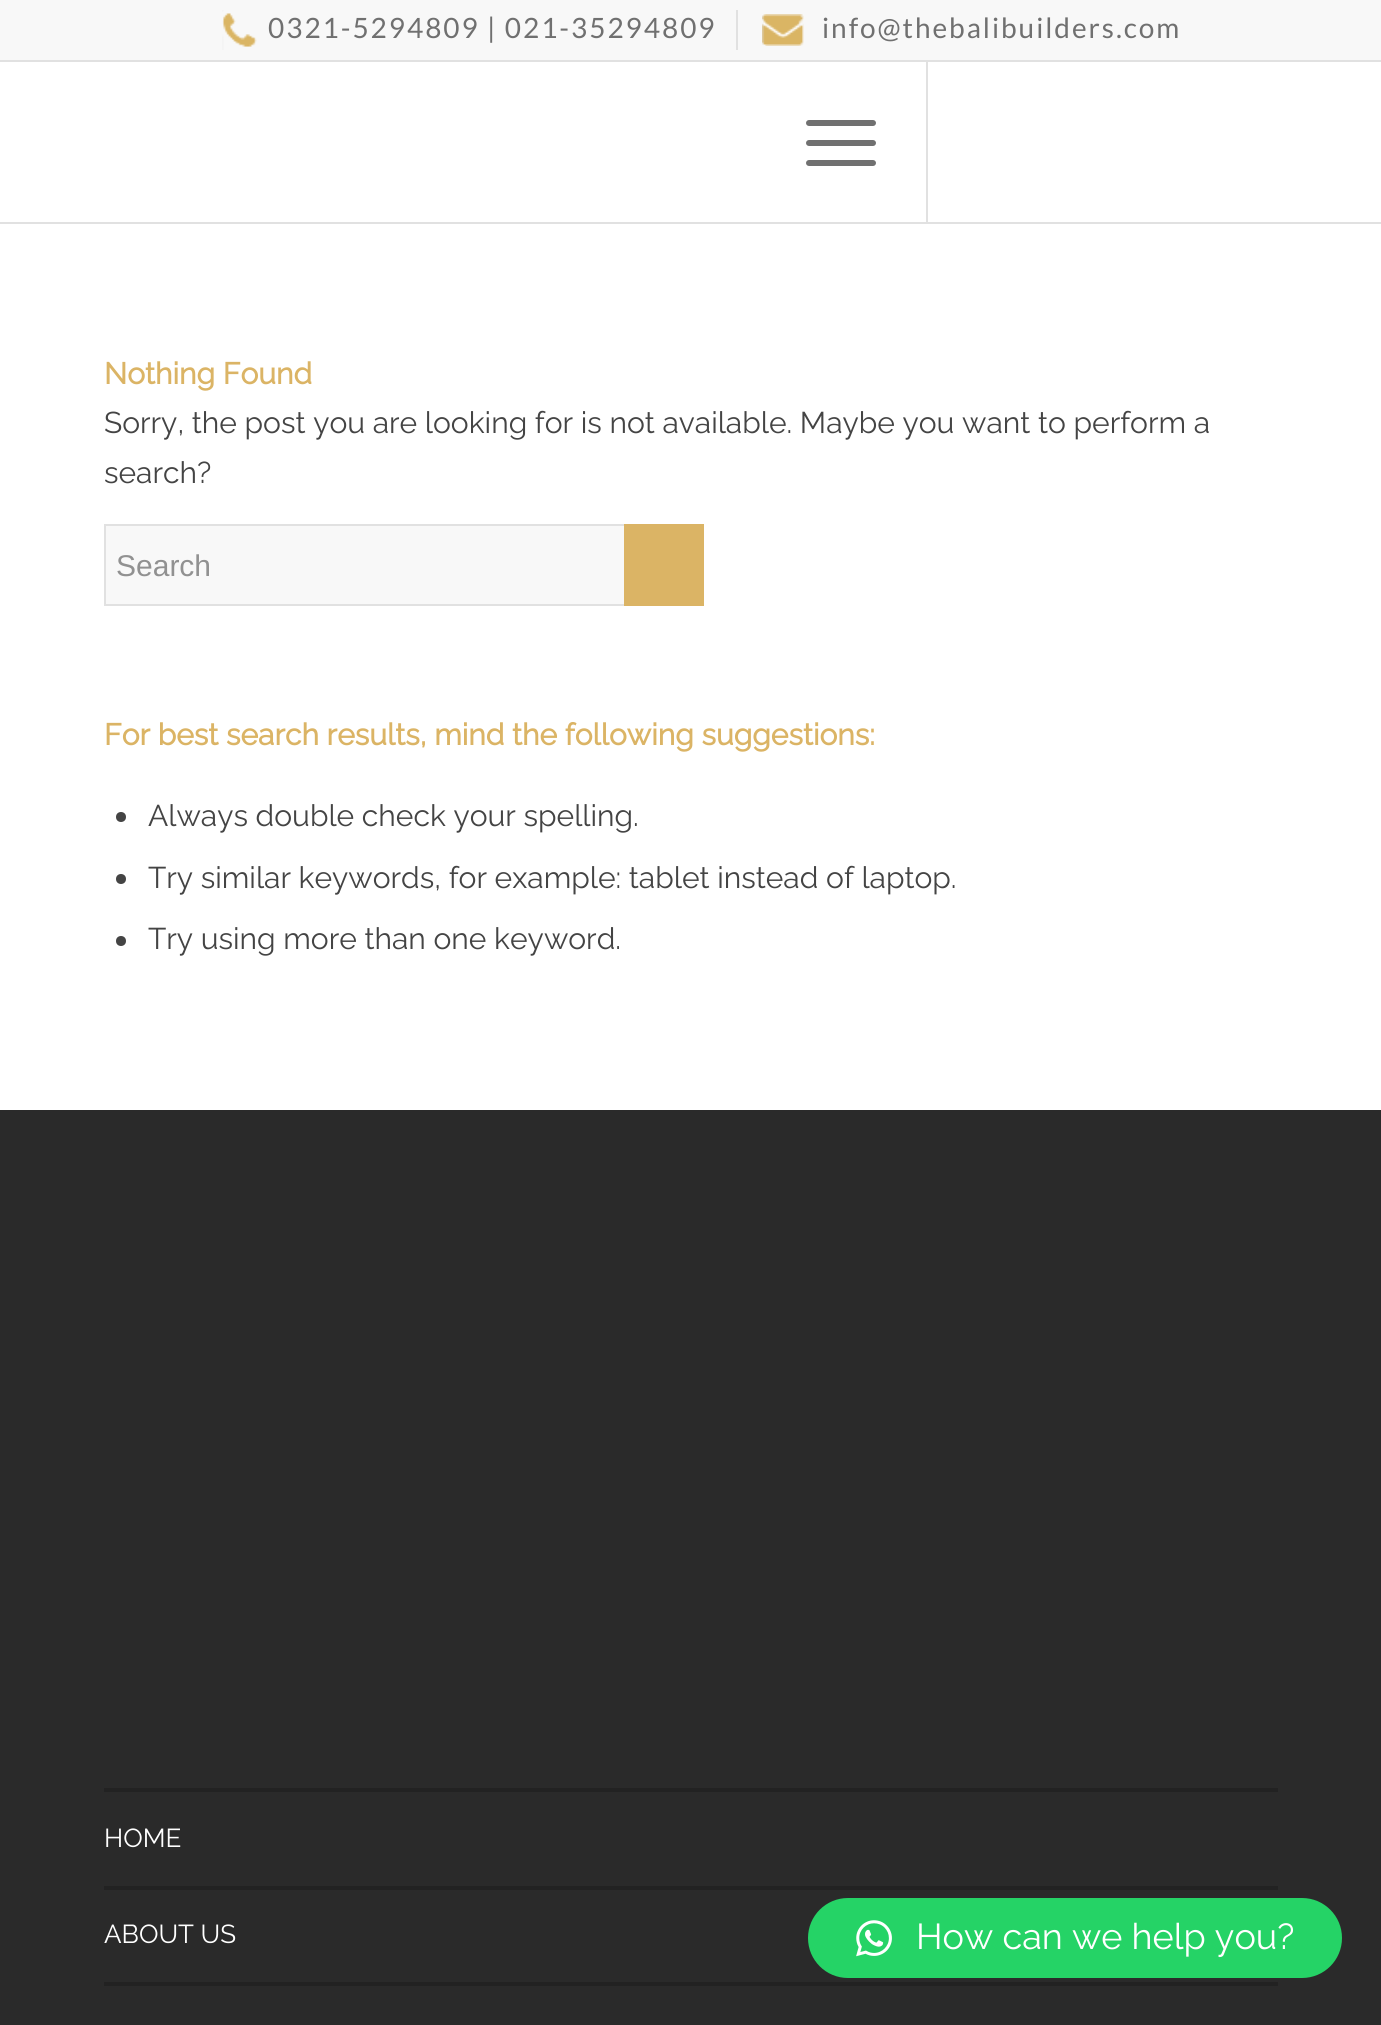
#include <cairo.h>
#include <math.h>
#include <stddef.h>

typedef struct { double x, y, w, h; unsigned color; } box_t;

static void ink(cairo_t *ctx, unsigned color) {
    cairo_set_source_rgb(ctx, (color >> 16) / 255.0, (color >> 8 & 255) / 255.0, (color & 255) / 255.0);
}

static void write_spaced(cairo_t *ctx, double x, double y, const char *s, double letter, double word) {
    cairo_move_to(ctx, x, y);
    while (*s) {
        char ch[5] = {0};
        int n = 0;
        do ch[n++] = *s++; while ((*s & 0xC0) == 0x80);
        cairo_show_text(ctx, ch);
        cairo_rel_move_to(ctx, letter + word * (*ch == ' '), 0);
    }
}

static void round_path(cairo_t *ctx, double x, double y, double w, double h, double r) {
    cairo_new_sub_path(ctx);
    cairo_arc(ctx, x + w - r, y + h - r, r, 0, M_PI / 2);
    cairo_arc(ctx, x + r, y + h - r, r, M_PI / 2, M_PI);
    cairo_arc(ctx, x + r, y + r, r, M_PI, 1.5 * M_PI);
    cairo_arc(ctx, x + w - r, y + r, r, 1.5 * M_PI, 2 * M_PI);
    cairo_close_path(ctx);
}

static void paste(cairo_t *ctx, const char *path, double x, double y, double w, double h) {
    cairo_surface_t *image = cairo_image_surface_create_from_png(path);
    cairo_save(ctx);
    cairo_set_source_surface(ctx, image, x, y);
    cairo_rectangle(ctx, x, y, w, h);
    cairo_fill(ctx);
    cairo_restore(ctx);
    cairo_surface_destroy(image);
}

int main(void) {
    cairo_surface_t *surface = cairo_image_surface_create(CAIRO_FORMAT_RGB24, 1381, 2025);
    cairo_t *ctx = cairo_create(surface);
    cairo_font_options_t *options = cairo_font_options_create();
    cairo_font_options_set_hint_metrics(options, CAIRO_HINT_METRICS_OFF);
    cairo_font_options_set_hint_style(options, CAIRO_HINT_STYLE_NONE);
    cairo_set_font_options(ctx, options);
    cairo_set_miter_limit(ctx, 4);
    ink(ctx, 0xFFFFFF);
    cairo_paint(ctx);
    {
        static const box_t items[] = {
            {0, 0, 1381, 60, 0xF8F8F8},
            {0, 60, 1381, 2, 0xE1E1E1},
            {736, 10, 2, 40, 0xE1E1E1},
        };
        for (size_t i = 0; i < sizeof items / sizeof *items; i++) {
            ink(ctx, items[i].color);
            cairo_rectangle(ctx, items[i].x, items[i].y, items[i].w, items[i].h);
            cairo_fill(ctx);
        }
    }
    paste(ctx, "media/1.png", 222, 10, 35, 40);
    cairo_select_font_face(ctx, "Lato", CAIRO_FONT_SLANT_NORMAL, CAIRO_FONT_WEIGHT_NORMAL);
    cairo_set_font_size(ctx, 28);
    ink(ctx, 0x707070);
    write_spaced(ctx, 268, 38, "0321-5294809 | 021-35294809", 1.95, 0);
    paste(ctx, "media/2.png", 762, 14, 42, 32);
    write_spaced(ctx, 822, 38, "info@thebalibuilders.com", 1.95, 0);
    ink(ctx, 0xE1E1E1);
    cairo_rectangle(ctx, 0, 222, 1381, 2);
    cairo_fill(ctx);
    cairo_rectangle(ctx, 926, 62, 2, 160);
    cairo_fill(ctx);
    ink(ctx, 0x707070);
    round_path(ctx, 806, 140, 70, 6, 3);
    cairo_fill(ctx);
    round_path(ctx, 806, 120, 70, 6, 3);
    cairo_fill(ctx);
    round_path(ctx, 806, 160, 70, 6, 3);
    cairo_fill(ctx);
    cairo_select_font_face(ctx, "Raleway", CAIRO_FONT_SLANT_NORMAL, CAIRO_FONT_WEIGHT_BOLD);
    cairo_set_font_size(ctx, 30);
    ink(ctx, 0xDBB465);
    cairo_move_to(ctx, 104, 384);
    cairo_show_text(ctx, "Nothing Found");
    cairo_select_font_face(ctx, "Raleway Thin", CAIRO_FONT_SLANT_NORMAL, CAIRO_FONT_WEIGHT_NORMAL);
    ink(ctx, 0x444444);
    cairo_move_to(ctx, 104, 433);
    cairo_show_text(ctx, "Sorry, the post you are looking for is not available. Maybe you want to perform a");
    cairo_move_to(ctx, 104, 483);
    cairo_show_text(ctx, "search?");
    ink(ctx, 0xF8F8F8);
    cairo_rectangle(ctx, 106, 526, 518, 78);
    cairo_fill(ctx);
    cairo_rectangle(ctx, 105, 525, 598, 80);
    ink(ctx, 0xE1E1E1);
    cairo_stroke(ctx);
    cairo_select_font_face(ctx, "Liberation Sans", CAIRO_FONT_SLANT_NORMAL, CAIRO_FONT_WEIGHT_NORMAL);
    ink(ctx, 0x919191);
    cairo_move_to(ctx, 116, 576);
    cairo_show_text(ctx, "Search");
    ink(ctx, 0xDBB465);
    cairo_rectangle(ctx, 624, 524, 80, 82);
    cairo_fill(ctx);
    cairo_select_font_face(ctx, "Raleway", CAIRO_FONT_SLANT_NORMAL, CAIRO_FONT_WEIGHT_BOLD);
    cairo_move_to(ctx, 104, 745);
    cairo_show_text(ctx, "For best search results, mind the following suggestions:");
    ink(ctx, 0x444444);
    cairo_new_path(ctx);
    cairo_arc(ctx, 121, 817, 5, 0, 2 * M_PI);
    cairo_fill(ctx);
    cairo_select_font_face(ctx, "Raleway Thin", CAIRO_FONT_SLANT_NORMAL, CAIRO_FONT_WEIGHT_NORMAL);
    cairo_move_to(ctx, 148, 826);
    cairo_show_text(ctx, "Always double check your spelling.");
    cairo_new_path(ctx);
    cairo_arc(ctx, 121, 879, 5, 0, 2 * M_PI);
    cairo_fill(ctx);
    cairo_move_to(ctx, 148, 888);
    cairo_show_text(ctx, "Try similar keywords, for example: tablet instead of laptop.");
    cairo_new_path(ctx);
    cairo_arc(ctx, 121, 941, 5, 0, 2 * M_PI);
    cairo_fill(ctx);
    cairo_move_to(ctx, 148, 949);
    cairo_show_text(ctx, "Try using more than one keyword.");
    ink(ctx, 0x2A2A2A);
    cairo_rectangle(ctx, 0, 1110, 1381, 915);
    cairo_fill(ctx);
    ink(ctx, 0x222222);
    cairo_rectangle(ctx, 104, 1788, 1174, 4);
    cairo_fill(ctx);
    cairo_set_font_size(ctx, 26);
    ink(ctx, 0xFFFFFF);
    cairo_move_to(ctx, 104, 1847);
    cairo_show_text(ctx, "HOME");
    ink(ctx, 0x222222);
    cairo_rectangle(ctx, 104, 1886, 1174, 4);
    cairo_fill(ctx);
    ink(ctx, 0xFFFFFF);
    cairo_move_to(ctx, 104, 1943);
    cairo_show_text(ctx, "ABOUT US");
    ink(ctx, 0x222222);
    cairo_rectangle(ctx, 104, 1982, 1174, 4);
    cairo_fill(ctx);
    ink(ctx, 0x25D366);
    round_path(ctx, 808, 1898, 534, 80, 40);
    cairo_fill(ctx);
    paste(ctx, "media/3.png", 856, 1920, 36, 37);
    cairo_set_font_size(ctx, 36);
    ink(ctx, 0xFFFFFF);
    cairo_move_to(ctx, 916, 1949);
    cairo_show_text(ctx, "How can we help you?");
    cairo_surface_write_to_png(surface, "image.png");
    cairo_font_options_destroy(options);
    cairo_destroy(ctx);
    cairo_surface_destroy(surface);
    return 0;
}
